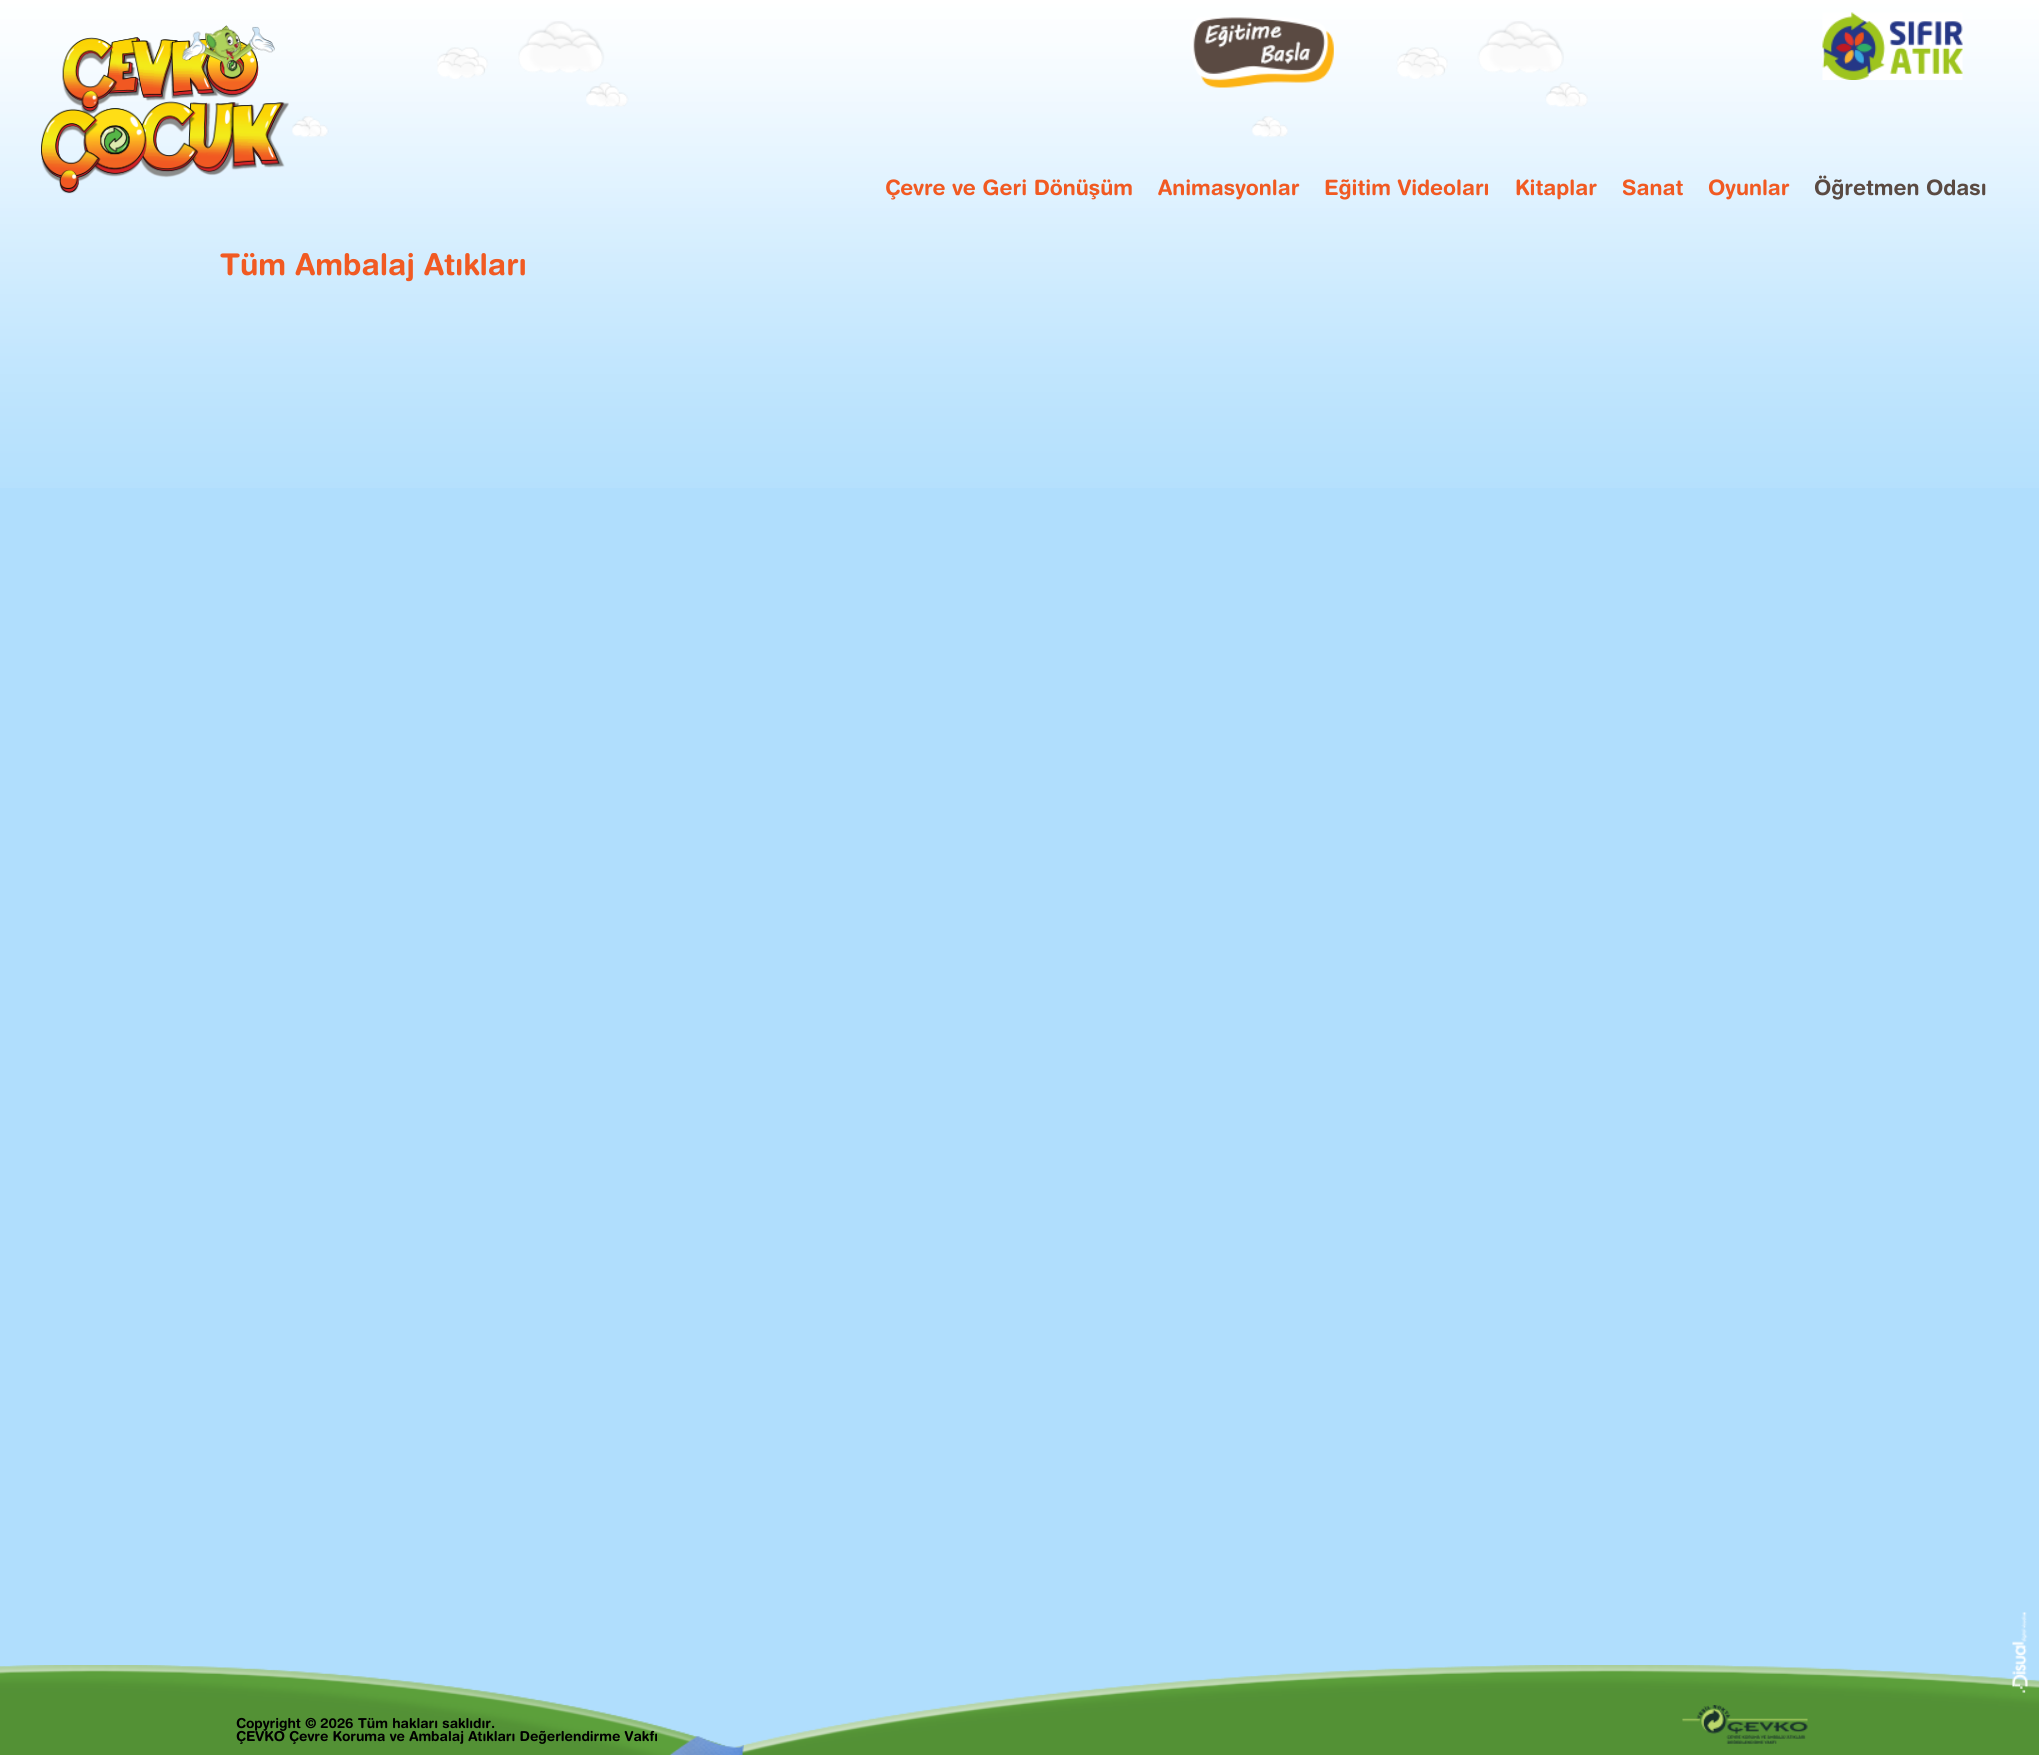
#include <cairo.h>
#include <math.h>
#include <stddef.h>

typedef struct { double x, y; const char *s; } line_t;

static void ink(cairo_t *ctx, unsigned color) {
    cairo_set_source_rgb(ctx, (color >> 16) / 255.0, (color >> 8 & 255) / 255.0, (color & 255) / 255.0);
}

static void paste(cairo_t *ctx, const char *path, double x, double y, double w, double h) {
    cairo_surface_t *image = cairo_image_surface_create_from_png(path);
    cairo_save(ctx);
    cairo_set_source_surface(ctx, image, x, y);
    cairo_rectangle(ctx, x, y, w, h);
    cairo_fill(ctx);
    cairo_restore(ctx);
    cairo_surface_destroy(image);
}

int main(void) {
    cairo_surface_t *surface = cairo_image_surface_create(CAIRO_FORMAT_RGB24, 2039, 1755);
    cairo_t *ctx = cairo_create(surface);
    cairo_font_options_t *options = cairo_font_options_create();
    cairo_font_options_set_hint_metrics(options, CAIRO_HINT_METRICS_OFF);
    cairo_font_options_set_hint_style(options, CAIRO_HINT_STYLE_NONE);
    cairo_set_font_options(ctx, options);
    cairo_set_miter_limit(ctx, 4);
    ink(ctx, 0xB0DEFD);
    cairo_paint(ctx);
    paste(ctx, "media/1.png", 0, 0, 2039, 488);
    paste(ctx, "media/2.png", 518, 21, 1046, 52);
    paste(ctx, "media/3.png", 437, 47, 1011, 32);
    paste(ctx, "media/4.png", 586, 82, 1002, 25);
    paste(ctx, "media/5.png", 292, 116, 996, 22);
    paste(ctx, "media/6.png", 41, 25, 248, 169);
    paste(ctx, "media/7.png", 1190, 17, 144, 71);
    paste(ctx, "media/8.png", 1822, 12, 141, 68);
    cairo_select_font_face(ctx, "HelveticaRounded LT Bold", CAIRO_FONT_SLANT_NORMAL, CAIRO_FONT_WEIGHT_BOLD);
    cairo_set_font_size(ctx, 21.25);
    ink(ctx, 0xF15A22);
    {
        static const line_t items[] = {
            {885, 195, "Çevre ve Geri Dönüşüm"},
            {1158, 195, "Animasyonlar"},
            {1324, 195, "Eğitim Videoları"},
            {1515, 195, "Kitaplar"},
            {1622, 195, "Sanat"},
            {1708, 195, "Oyunlar"},
        };
        for (size_t i = 0; i < sizeof items / sizeof *items; i++) {
            cairo_move_to(ctx, items[i].x, items[i].y);
            cairo_show_text(ctx, items[i].s);
        }
    }
    ink(ctx, 0x5A4A42);
    cairo_move_to(ctx, 1814, 195);
    cairo_show_text(ctx, "Öğretmen Odası");
    cairo_set_font_size(ctx, 30);
    ink(ctx, 0xF15A22);
    cairo_move_to(ctx, 220, 275);
    cairo_show_text(ctx, "Tüm Ambalaj Atıkları");
    paste(ctx, "media/10.png", 0, 1665, 2039, 90);
    paste(ctx, "media/9.png", 2012, 1612, 16, 81);
    cairo_set_font_size(ctx, 13.75);
    ink(ctx, 0x000000);
    cairo_move_to(ctx, 236, 1728);
    cairo_show_text(ctx, "Copyright © 2026 Tüm hakları saklıdır.");
    cairo_move_to(ctx, 236, 1741);
    cairo_show_text(ctx, "ÇEVKO Çevre Koruma ve Ambalaj Atıkları Değerlendirme Vakfı");
    paste(ctx, "media/11.png", 1682, 1705, 126, 39);
    cairo_surface_write_to_png(surface, "image.png");
    cairo_font_options_destroy(options);
    cairo_destroy(ctx);
    cairo_surface_destroy(surface);
    return 0;
}
